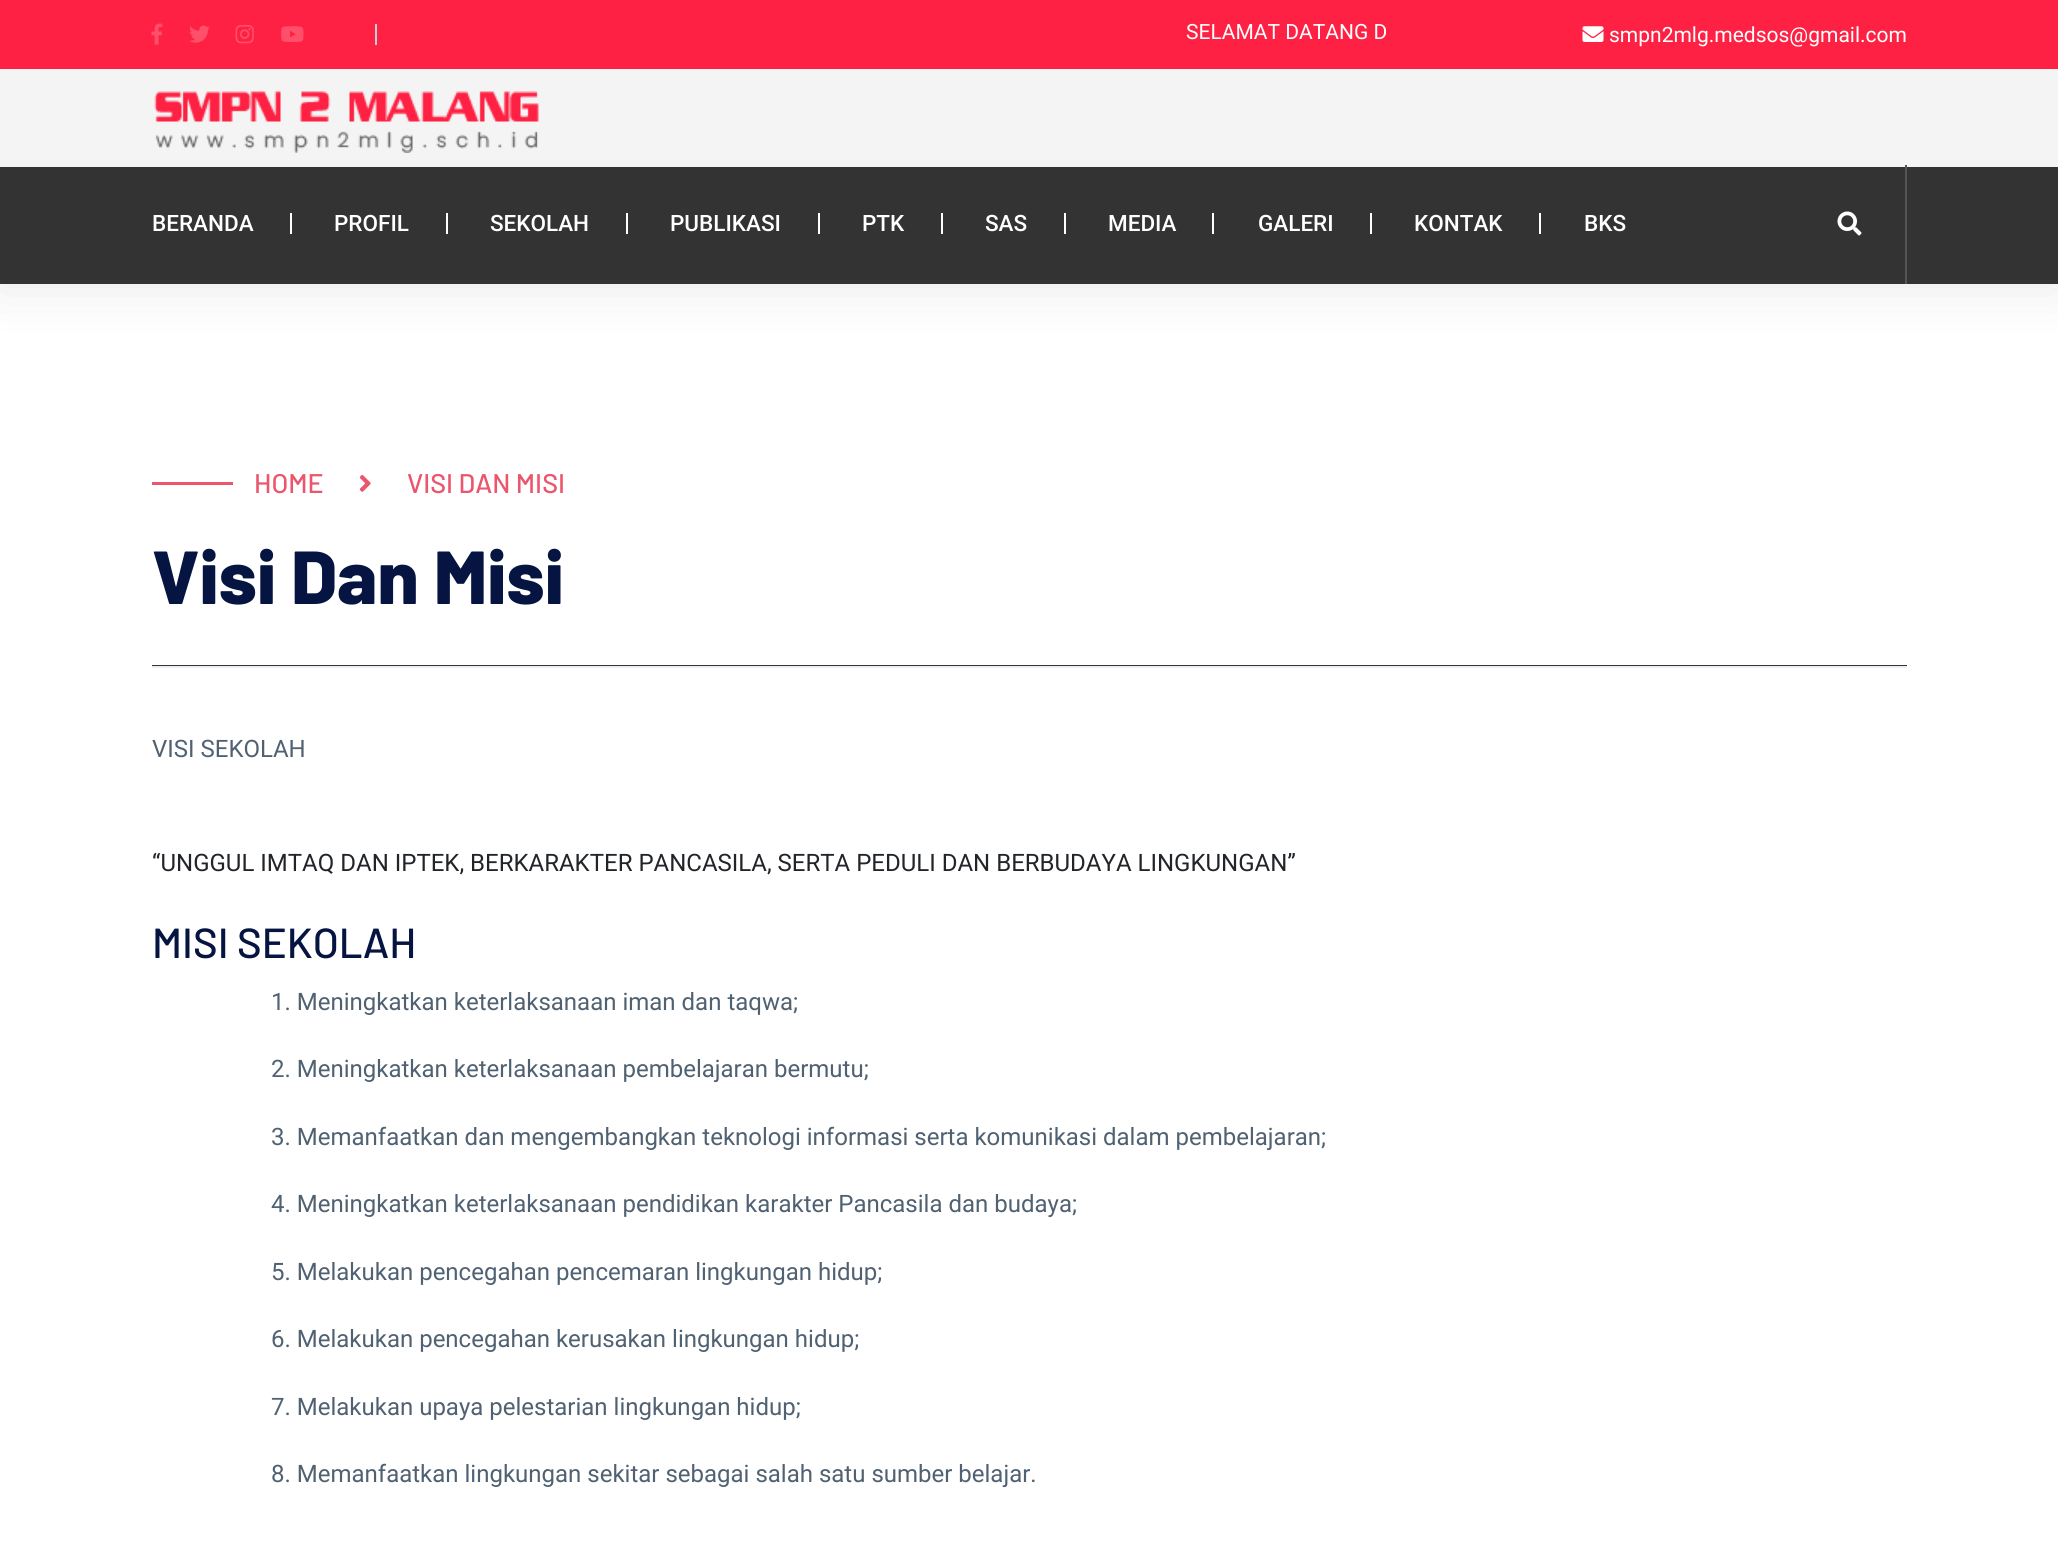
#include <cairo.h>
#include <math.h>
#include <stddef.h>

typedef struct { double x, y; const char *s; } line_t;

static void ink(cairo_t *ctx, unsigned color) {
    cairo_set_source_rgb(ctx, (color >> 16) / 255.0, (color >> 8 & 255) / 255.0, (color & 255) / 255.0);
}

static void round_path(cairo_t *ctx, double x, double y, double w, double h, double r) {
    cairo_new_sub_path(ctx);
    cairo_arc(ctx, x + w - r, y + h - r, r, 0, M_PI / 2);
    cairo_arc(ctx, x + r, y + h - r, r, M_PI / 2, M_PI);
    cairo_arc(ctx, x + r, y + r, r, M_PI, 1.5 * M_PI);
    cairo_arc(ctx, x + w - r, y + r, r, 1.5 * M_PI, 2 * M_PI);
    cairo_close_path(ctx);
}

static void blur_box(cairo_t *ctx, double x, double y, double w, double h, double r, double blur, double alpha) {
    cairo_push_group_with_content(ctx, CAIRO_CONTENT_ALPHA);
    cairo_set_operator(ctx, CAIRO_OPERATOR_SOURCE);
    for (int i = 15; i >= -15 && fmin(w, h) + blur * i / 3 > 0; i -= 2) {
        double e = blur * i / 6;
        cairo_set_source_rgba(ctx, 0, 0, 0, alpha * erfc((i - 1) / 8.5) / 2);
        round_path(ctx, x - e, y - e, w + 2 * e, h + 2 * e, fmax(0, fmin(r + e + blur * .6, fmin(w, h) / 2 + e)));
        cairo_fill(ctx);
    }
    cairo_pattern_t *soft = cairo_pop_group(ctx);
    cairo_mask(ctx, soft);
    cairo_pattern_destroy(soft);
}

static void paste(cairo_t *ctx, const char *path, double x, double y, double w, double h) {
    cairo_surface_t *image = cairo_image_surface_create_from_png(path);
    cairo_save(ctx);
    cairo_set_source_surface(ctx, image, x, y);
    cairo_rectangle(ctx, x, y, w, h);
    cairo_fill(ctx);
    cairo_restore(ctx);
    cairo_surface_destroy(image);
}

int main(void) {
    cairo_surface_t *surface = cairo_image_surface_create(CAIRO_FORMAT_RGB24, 2058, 1541);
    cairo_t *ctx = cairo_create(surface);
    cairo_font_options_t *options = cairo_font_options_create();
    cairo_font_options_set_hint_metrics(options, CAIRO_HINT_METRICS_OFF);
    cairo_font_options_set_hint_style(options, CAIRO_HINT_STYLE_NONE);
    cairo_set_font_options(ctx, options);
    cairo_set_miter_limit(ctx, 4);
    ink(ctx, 0xFFFFFF);
    cairo_paint(ctx);
    ink(ctx, 0xFF2143);
    cairo_rectangle(ctx, 0, 0, 2058, 69);
    cairo_fill(ctx);
    ink(ctx, 0xCDCFD8);
    cairo_rectangle(ctx, 375, 24, 2, 21);
    cairo_fill(ctx);
    paste(ctx, "media/1.png", 151, 23, 12, 22);
    paste(ctx, "media/2.png", 189, 25, 21, 18);
    paste(ctx, "media/3.png", 235, 25, 19, 19);
    paste(ctx, "media/4.png", 281, 26, 23, 16);
    cairo_select_font_face(ctx, "Roboto", CAIRO_FONT_SLANT_NORMAL, CAIRO_FONT_WEIGHT_NORMAL);
    cairo_set_font_size(ctx, 21);
    ink(ctx, 0xFFFFFF);
    cairo_move_to(ctx, 1186, 39);
    cairo_show_text(ctx, "SELAMAT DATANG D");
    paste(ctx, "media/5.png", 1582, 26, 22, 16);
    cairo_move_to(ctx, 1609, 42);
    cairo_show_text(ctx, "smpn2mlg.medsos@gmail.com");
    ink(ctx, 0x000000);
    blur_box(ctx, 0, 167, 2058, 117, 0, 27, 0.1);
    ink(ctx, 0xF4F4F4);
    cairo_rectangle(ctx, 0, 69, 2058, 98);
    cairo_fill(ctx);
    paste(ctx, "media/6.png", 154, 91, 385, 62);
    ink(ctx, 0x333333);
    cairo_rectangle(ctx, 0, 167, 2058, 117);
    cairo_fill(ctx);
    cairo_select_font_face(ctx, "Roboto Medium", CAIRO_FONT_SLANT_NORMAL, CAIRO_FONT_WEIGHT_NORMAL);
    cairo_set_font_size(ctx, 22.5);
    ink(ctx, 0xFFFFFF);
    cairo_move_to(ctx, 152, 231);
    cairo_show_text(ctx, "BERANDA");
    cairo_rectangle(ctx, 290, 213, 2, 21);
    cairo_fill(ctx);
    cairo_move_to(ctx, 334, 231);
    cairo_show_text(ctx, "PROFIL");
    cairo_rectangle(ctx, 446, 213, 2, 21);
    cairo_fill(ctx);
    cairo_move_to(ctx, 490, 231);
    cairo_show_text(ctx, "SEKOLAH");
    cairo_rectangle(ctx, 626, 213, 2, 21);
    cairo_fill(ctx);
    cairo_move_to(ctx, 670, 231);
    cairo_show_text(ctx, "PUBLIKASI");
    cairo_rectangle(ctx, 818, 213, 2, 21);
    cairo_fill(ctx);
    cairo_move_to(ctx, 862, 231);
    cairo_show_text(ctx, "PTK");
    cairo_rectangle(ctx, 941, 213, 2, 21);
    cairo_fill(ctx);
    cairo_move_to(ctx, 985, 231);
    cairo_show_text(ctx, "SAS");
    cairo_rectangle(ctx, 1064, 213, 2, 21);
    cairo_fill(ctx);
    cairo_move_to(ctx, 1108, 231);
    cairo_show_text(ctx, "MEDIA");
    cairo_rectangle(ctx, 1212, 213, 2, 21);
    cairo_fill(ctx);
    cairo_move_to(ctx, 1258, 231);
    cairo_show_text(ctx, "GALERI");
    cairo_rectangle(ctx, 1370, 213, 2, 21);
    cairo_fill(ctx);
    cairo_move_to(ctx, 1414, 231);
    cairo_show_text(ctx, "KONTAK");
    cairo_rectangle(ctx, 1539, 213, 2, 21);
    cairo_fill(ctx);
    cairo_move_to(ctx, 1584, 231);
    cairo_show_text(ctx, "BKS");
    paste(ctx, "media/7.png", 1837, 211, 25, 25);
    ink(ctx, 0x555555);
    cairo_rectangle(ctx, 1905, 165, 2, 119);
    cairo_fill(ctx);
    ink(ctx, 0xEB566C);
    cairo_rectangle(ctx, 152, 482, 81, 3);
    cairo_fill(ctx);
    cairo_select_font_face(ctx, "Barlow Medium", CAIRO_FONT_SLANT_NORMAL, CAIRO_FONT_WEIGHT_NORMAL);
    cairo_set_font_size(ctx, 27);
    cairo_move_to(ctx, 254, 493);
    cairo_show_text(ctx, "HOME");
    paste(ctx, "media/8.png", 359, 475, 12, 17);
    cairo_move_to(ctx, 407, 493);
    cairo_show_text(ctx, "VISI DAN MISI");
    cairo_select_font_face(ctx, "Barlow ExtraBold", CAIRO_FONT_SLANT_NORMAL, CAIRO_FONT_WEIGHT_NORMAL);
    cairo_set_font_size(ctx, 75);
    ink(ctx, 0x051441);
    cairo_move_to(ctx, 152, 604);
    cairo_show_text(ctx, "Visi Dan Misi");
    ink(ctx, 0x333333);
    cairo_rectangle(ctx, 152, 665, 1755, 1);
    cairo_fill(ctx);
    ink(ctx, 0xECEFF8);
    cairo_rectangle(ctx, 152, 666, 1755, 2);
    cairo_fill(ctx);
    cairo_select_font_face(ctx, "Roboto", CAIRO_FONT_SLANT_NORMAL, CAIRO_FONT_WEIGHT_NORMAL);
    cairo_set_font_size(ctx, 24);
    ink(ctx, 0x506172);
    cairo_move_to(ctx, 152, 757);
    cairo_show_text(ctx, "VISI SEKOLAH");
    ink(ctx, 0x212529);
    cairo_move_to(ctx, 152, 871);
    cairo_show_text(ctx, "“UNGGUL IMTAQ DAN IPTEK, BERKARAKTER PANCASILA, SERTA PEDULI DAN BERBUDAYA LINGKUNGAN”");
    cairo_select_font_face(ctx, "Barlow Medium", CAIRO_FONT_SLANT_NORMAL, CAIRO_FONT_WEIGHT_NORMAL);
    cairo_set_font_size(ctx, 42);
    ink(ctx, 0x051441);
    cairo_move_to(ctx, 152, 958);
    cairo_show_text(ctx, "MISI SEKOLAH");
    cairo_select_font_face(ctx, "Roboto", CAIRO_FONT_SLANT_NORMAL, CAIRO_FONT_WEIGHT_NORMAL);
    cairo_set_font_size(ctx, 24);
    ink(ctx, 0x506172);
    {
        static const line_t items[] = {
            {271, 1010, "1. Meningkatkan keterlaksanaan iman dan taqwa;"},
            {271, 1077, "2. Meningkatkan keterlaksanaan pembelajaran bermutu;"},
            {271, 1145, "3. Memanfaatkan dan mengembangkan teknologi informasi serta komunikasi dalam pembelajaran;"},
            {271, 1212, "4. Meningkatkan keterlaksanaan pendidikan karakter Pancasila dan budaya;"},
            {271, 1280, "5. Melakukan pencegahan pencemaran lingkungan hidup;"},
            {271, 1347, "6. Melakukan pencegahan kerusakan lingkungan hidup;"},
            {271, 1415, "7. Melakukan upaya pelestarian lingkungan hidup;"},
            {271, 1482, "8. Memanfaatkan lingkungan sekitar sebagai salah satu sumber belajar."},
        };
        for (size_t i = 0; i < sizeof items / sizeof *items; i++) {
            cairo_move_to(ctx, items[i].x, items[i].y);
            cairo_show_text(ctx, items[i].s);
        }
    }
    cairo_surface_write_to_png(surface, "image.png");
    cairo_font_options_destroy(options);
    cairo_destroy(ctx);
    cairo_surface_destroy(surface);
    return 0;
}
